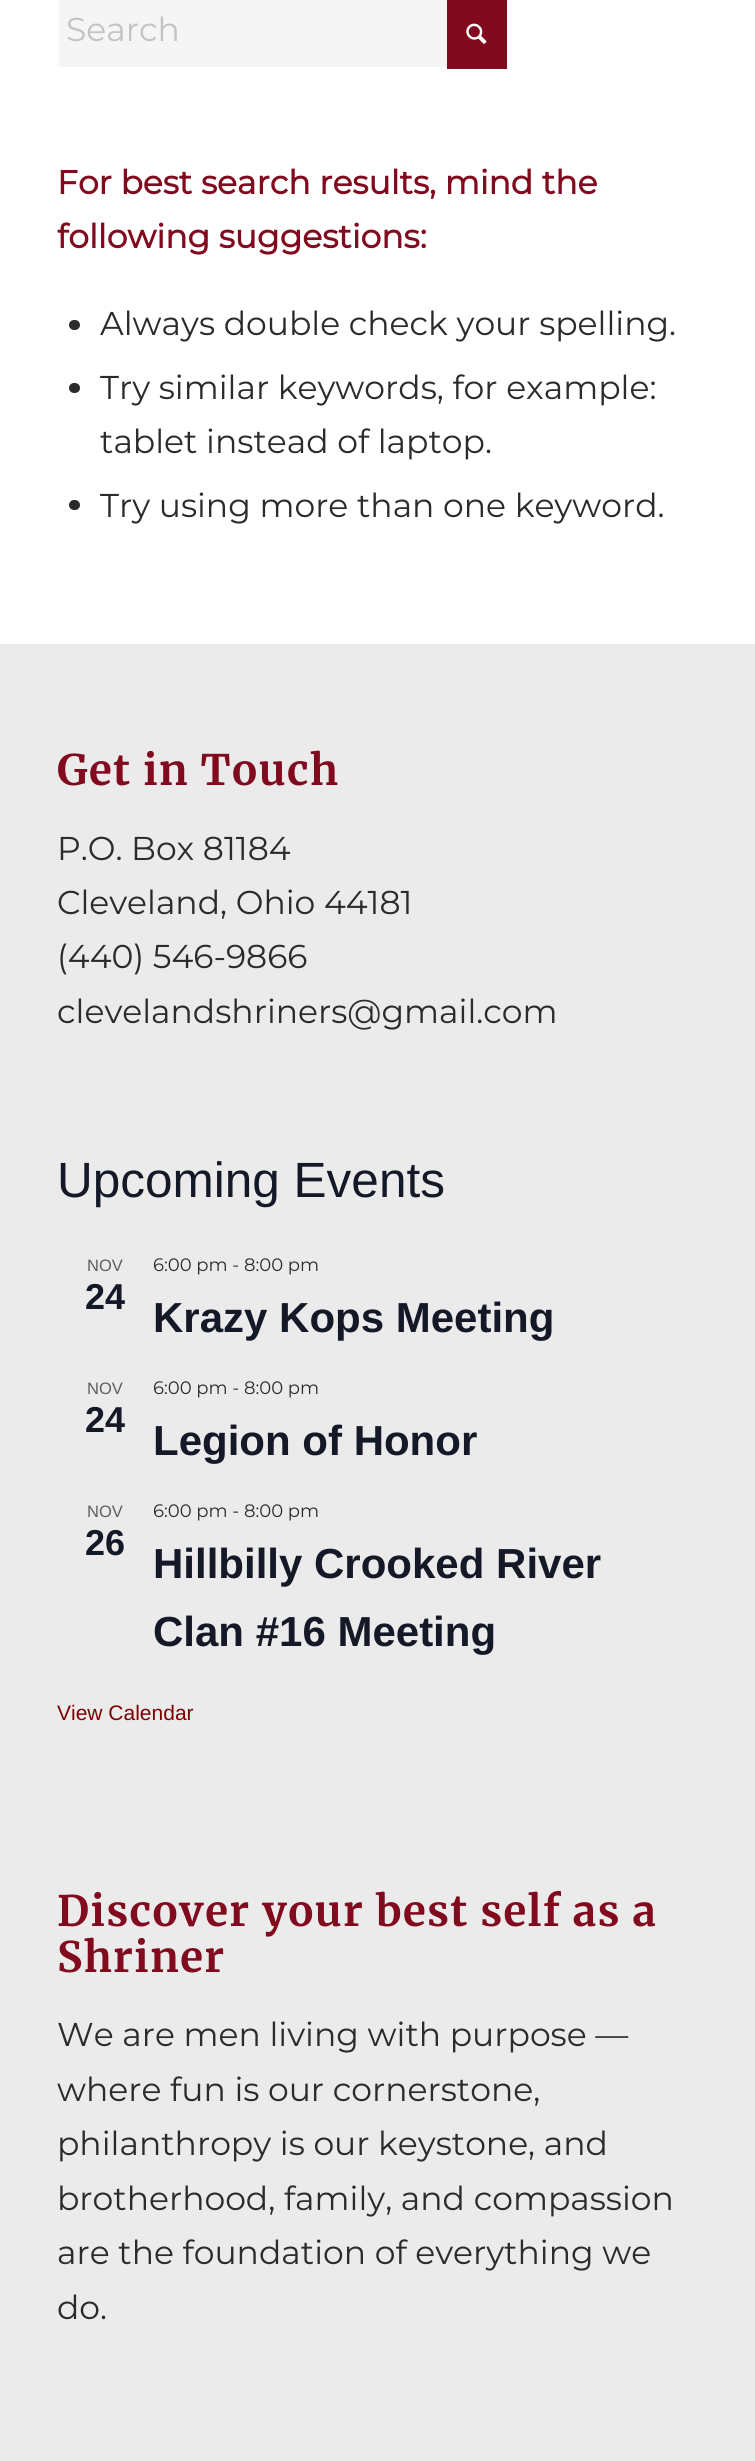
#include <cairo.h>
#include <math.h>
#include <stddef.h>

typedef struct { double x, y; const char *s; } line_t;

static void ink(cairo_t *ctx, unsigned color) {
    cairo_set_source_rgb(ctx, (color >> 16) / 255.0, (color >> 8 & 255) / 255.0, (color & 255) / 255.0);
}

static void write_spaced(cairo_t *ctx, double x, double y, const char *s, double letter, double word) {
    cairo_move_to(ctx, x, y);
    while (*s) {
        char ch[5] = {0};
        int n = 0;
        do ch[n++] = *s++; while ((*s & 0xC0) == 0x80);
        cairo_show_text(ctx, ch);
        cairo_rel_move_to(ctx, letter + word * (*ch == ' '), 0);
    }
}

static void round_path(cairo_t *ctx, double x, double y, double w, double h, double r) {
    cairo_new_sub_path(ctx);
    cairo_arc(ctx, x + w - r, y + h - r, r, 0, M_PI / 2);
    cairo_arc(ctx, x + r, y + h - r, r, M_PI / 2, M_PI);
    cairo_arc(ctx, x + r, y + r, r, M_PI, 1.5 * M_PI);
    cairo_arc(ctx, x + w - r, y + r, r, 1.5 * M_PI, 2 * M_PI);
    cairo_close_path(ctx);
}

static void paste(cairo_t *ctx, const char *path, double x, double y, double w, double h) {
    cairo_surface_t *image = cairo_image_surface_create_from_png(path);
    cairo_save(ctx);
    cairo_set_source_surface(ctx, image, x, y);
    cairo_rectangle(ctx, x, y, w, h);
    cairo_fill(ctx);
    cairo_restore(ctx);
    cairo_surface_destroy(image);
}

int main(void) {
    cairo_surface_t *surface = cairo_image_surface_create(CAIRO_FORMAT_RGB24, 755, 2461);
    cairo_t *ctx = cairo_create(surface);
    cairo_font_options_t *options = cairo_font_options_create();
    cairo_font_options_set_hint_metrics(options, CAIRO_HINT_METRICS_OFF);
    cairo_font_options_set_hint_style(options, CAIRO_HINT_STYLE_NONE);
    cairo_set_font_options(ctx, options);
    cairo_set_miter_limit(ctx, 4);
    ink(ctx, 0xFFFFFF);
    cairo_paint(ctx);
    ink(ctx, 0xF5F5F5);
    cairo_rectangle(ctx, 59, 0, 388, 67);
    cairo_fill(ctx);
    cairo_select_font_face(ctx, "Montserrat Thin", CAIRO_FONT_SLANT_NORMAL, CAIRO_FONT_WEIGHT_NORMAL);
    cairo_set_font_size(ctx, 33);
    ink(ctx, 0xC3C3C3);
    cairo_move_to(ctx, 66, 41);
    cairo_show_text(ctx, "Search");
    ink(ctx, 0x820A1E);
    cairo_rectangle(ctx, 447, 0, 60, 69);
    cairo_fill(ctx);
    paste(ctx, "media/1.png", 466, 23, 21, 21);
    cairo_select_font_face(ctx, "Montserrat", CAIRO_FONT_SLANT_NORMAL, CAIRO_FONT_WEIGHT_BOLD);
    cairo_move_to(ctx, 57, 194);
    cairo_show_text(ctx, "For best search results, mind the");
    cairo_move_to(ctx, 57, 248);
    cairo_show_text(ctx, "following suggestions:");
    ink(ctx, 0x2B2B2B);
    round_path(ctx, 69, 320, 11, 10, 5);
    cairo_fill(ctx);
    cairo_select_font_face(ctx, "Montserrat Thin", CAIRO_FONT_SLANT_NORMAL, CAIRO_FONT_WEIGHT_NORMAL);
    cairo_move_to(ctx, 100, 335);
    cairo_show_text(ctx, "Always double check your spelling.");
    round_path(ctx, 69, 383, 11, 10, 5);
    cairo_fill(ctx);
    cairo_move_to(ctx, 100, 399);
    cairo_show_text(ctx, "Try similar keywords, for example:");
    cairo_move_to(ctx, 100, 453);
    cairo_show_text(ctx, "tablet instead of laptop.");
    round_path(ctx, 69, 500, 11, 10, 5);
    cairo_fill(ctx);
    cairo_move_to(ctx, 100, 517);
    cairo_show_text(ctx, "Try using more than one keyword.");
    ink(ctx, 0xEBEBEB);
    cairo_rectangle(ctx, 0, 644, 755, 1817);
    cairo_fill(ctx);
    cairo_select_font_face(ctx, "Merriweather", CAIRO_FONT_SLANT_NORMAL, CAIRO_FONT_WEIGHT_BOLD);
    cairo_set_font_size(ctx, 42);
    ink(ctx, 0x820A1E);
    write_spaced(ctx, 57, 785, "Get in Touch", 1.5, 0);
    cairo_select_font_face(ctx, "Montserrat Thin", CAIRO_FONT_SLANT_NORMAL, CAIRO_FONT_WEIGHT_NORMAL);
    cairo_set_font_size(ctx, 33);
    ink(ctx, 0x2B2B2B);
    {
        static const line_t items[] = {
            {57, 860, "P.O. Box 81184"},
            {57, 914, "Cleveland, Ohio 44181"},
            {57, 968, "(440) 546-9866"},
            {57, 1023, "clevelandshriners@gmail.com"},
        };
        for (size_t i = 0; i < sizeof items / sizeof *items; i++) {
            cairo_move_to(ctx, items[i].x, items[i].y);
            cairo_show_text(ctx, items[i].s);
        }
    }
    cairo_select_font_face(ctx, "Liberation Sans", CAIRO_FONT_SLANT_NORMAL, CAIRO_FONT_WEIGHT_NORMAL);
    cairo_set_font_size(ctx, 49.5);
    ink(ctx, 0x141827);
    cairo_move_to(ctx, 57, 1197);
    cairo_show_text(ctx, "Upcoming Events");
    cairo_set_font_size(ctx, 16.5);
    ink(ctx, 0x5D5D5D);
    cairo_move_to(ctx, 87, 1271);
    cairo_show_text(ctx, "NOV");
    cairo_select_font_face(ctx, "Liberation Sans", CAIRO_FONT_SLANT_NORMAL, CAIRO_FONT_WEIGHT_BOLD);
    cairo_set_font_size(ctx, 36);
    ink(ctx, 0x141827);
    cairo_move_to(ctx, 85, 1309);
    cairo_show_text(ctx, "24");
    cairo_select_font_face(ctx, "Montserrat Thin", CAIRO_FONT_SLANT_NORMAL, CAIRO_FONT_WEIGHT_NORMAL);
    cairo_set_font_size(ctx, 18);
    ink(ctx, 0x2B2B2B);
    cairo_move_to(ctx, 153, 1271);
    cairo_show_text(ctx, "6:00 pm - 8:00 pm");
    cairo_select_font_face(ctx, "Liberation Sans", CAIRO_FONT_SLANT_NORMAL, CAIRO_FONT_WEIGHT_BOLD);
    cairo_set_font_size(ctx, 42);
    ink(ctx, 0x141827);
    cairo_move_to(ctx, 153, 1332);
    cairo_show_text(ctx, "Krazy Kops Meeting");
    cairo_select_font_face(ctx, "Liberation Sans", CAIRO_FONT_SLANT_NORMAL, CAIRO_FONT_WEIGHT_NORMAL);
    cairo_set_font_size(ctx, 16.5);
    ink(ctx, 0x5D5D5D);
    cairo_move_to(ctx, 87, 1394);
    cairo_show_text(ctx, "NOV");
    cairo_select_font_face(ctx, "Liberation Sans", CAIRO_FONT_SLANT_NORMAL, CAIRO_FONT_WEIGHT_BOLD);
    cairo_set_font_size(ctx, 36);
    ink(ctx, 0x141827);
    cairo_move_to(ctx, 85, 1432);
    cairo_show_text(ctx, "24");
    cairo_select_font_face(ctx, "Montserrat Thin", CAIRO_FONT_SLANT_NORMAL, CAIRO_FONT_WEIGHT_NORMAL);
    cairo_set_font_size(ctx, 18);
    ink(ctx, 0x2B2B2B);
    cairo_move_to(ctx, 153, 1394);
    cairo_show_text(ctx, "6:00 pm - 8:00 pm");
    cairo_select_font_face(ctx, "Liberation Sans", CAIRO_FONT_SLANT_NORMAL, CAIRO_FONT_WEIGHT_BOLD);
    cairo_set_font_size(ctx, 42);
    ink(ctx, 0x141827);
    cairo_move_to(ctx, 153, 1455);
    cairo_show_text(ctx, "Legion of Honor");
    cairo_select_font_face(ctx, "Liberation Sans", CAIRO_FONT_SLANT_NORMAL, CAIRO_FONT_WEIGHT_NORMAL);
    cairo_set_font_size(ctx, 16.5);
    ink(ctx, 0x5D5D5D);
    cairo_move_to(ctx, 87, 1517);
    cairo_show_text(ctx, "NOV");
    cairo_select_font_face(ctx, "Liberation Sans", CAIRO_FONT_SLANT_NORMAL, CAIRO_FONT_WEIGHT_BOLD);
    cairo_set_font_size(ctx, 36);
    ink(ctx, 0x141827);
    cairo_move_to(ctx, 85, 1555);
    cairo_show_text(ctx, "26");
    cairo_select_font_face(ctx, "Montserrat Thin", CAIRO_FONT_SLANT_NORMAL, CAIRO_FONT_WEIGHT_NORMAL);
    cairo_set_font_size(ctx, 18);
    ink(ctx, 0x2B2B2B);
    cairo_move_to(ctx, 153, 1517);
    cairo_show_text(ctx, "6:00 pm - 8:00 pm");
    cairo_select_font_face(ctx, "Liberation Sans", CAIRO_FONT_SLANT_NORMAL, CAIRO_FONT_WEIGHT_BOLD);
    cairo_set_font_size(ctx, 42);
    ink(ctx, 0x141827);
    cairo_move_to(ctx, 153, 1578);
    cairo_show_text(ctx, "Hillbilly Crooked River");
    cairo_move_to(ctx, 153, 1646);
    cairo_show_text(ctx, "Clan #16 Meeting");
    cairo_select_font_face(ctx, "Liberation Sans", CAIRO_FONT_SLANT_NORMAL, CAIRO_FONT_WEIGHT_NORMAL);
    cairo_set_font_size(ctx, 21);
    ink(ctx, 0x7E0100);
    cairo_move_to(ctx, 57, 1720);
    cairo_show_text(ctx, "View Calendar");
    cairo_select_font_face(ctx, "Merriweather", CAIRO_FONT_SLANT_NORMAL, CAIRO_FONT_WEIGHT_BOLD);
    cairo_set_font_size(ctx, 42);
    ink(ctx, 0x820A1E);
    write_spaced(ctx, 57, 1926, "Discover your best self as a", 1.5, 0);
    write_spaced(ctx, 57, 1972, "Shriner", 1.5, 0);
    cairo_select_font_face(ctx, "Montserrat Thin", CAIRO_FONT_SLANT_NORMAL, CAIRO_FONT_WEIGHT_NORMAL);
    cairo_set_font_size(ctx, 33);
    ink(ctx, 0x2B2B2B);
    {
        static const line_t items[] = {
            {57, 2046, "We are men living with purpose —"},
            {57, 2101, "where fun is our cornerstone,"},
            {57, 2155, "philanthropy is our keystone, and"},
            {57, 2210, "brotherhood, family, and compassion"},
            {57, 2264, "are the foundation of everything we"},
            {57, 2319, "do."},
        };
        for (size_t i = 0; i < sizeof items / sizeof *items; i++) {
            cairo_move_to(ctx, items[i].x, items[i].y);
            cairo_show_text(ctx, items[i].s);
        }
    }
    cairo_surface_write_to_png(surface, "image.png");
    cairo_font_options_destroy(options);
    cairo_destroy(ctx);
    cairo_surface_destroy(surface);
    return 0;
}
